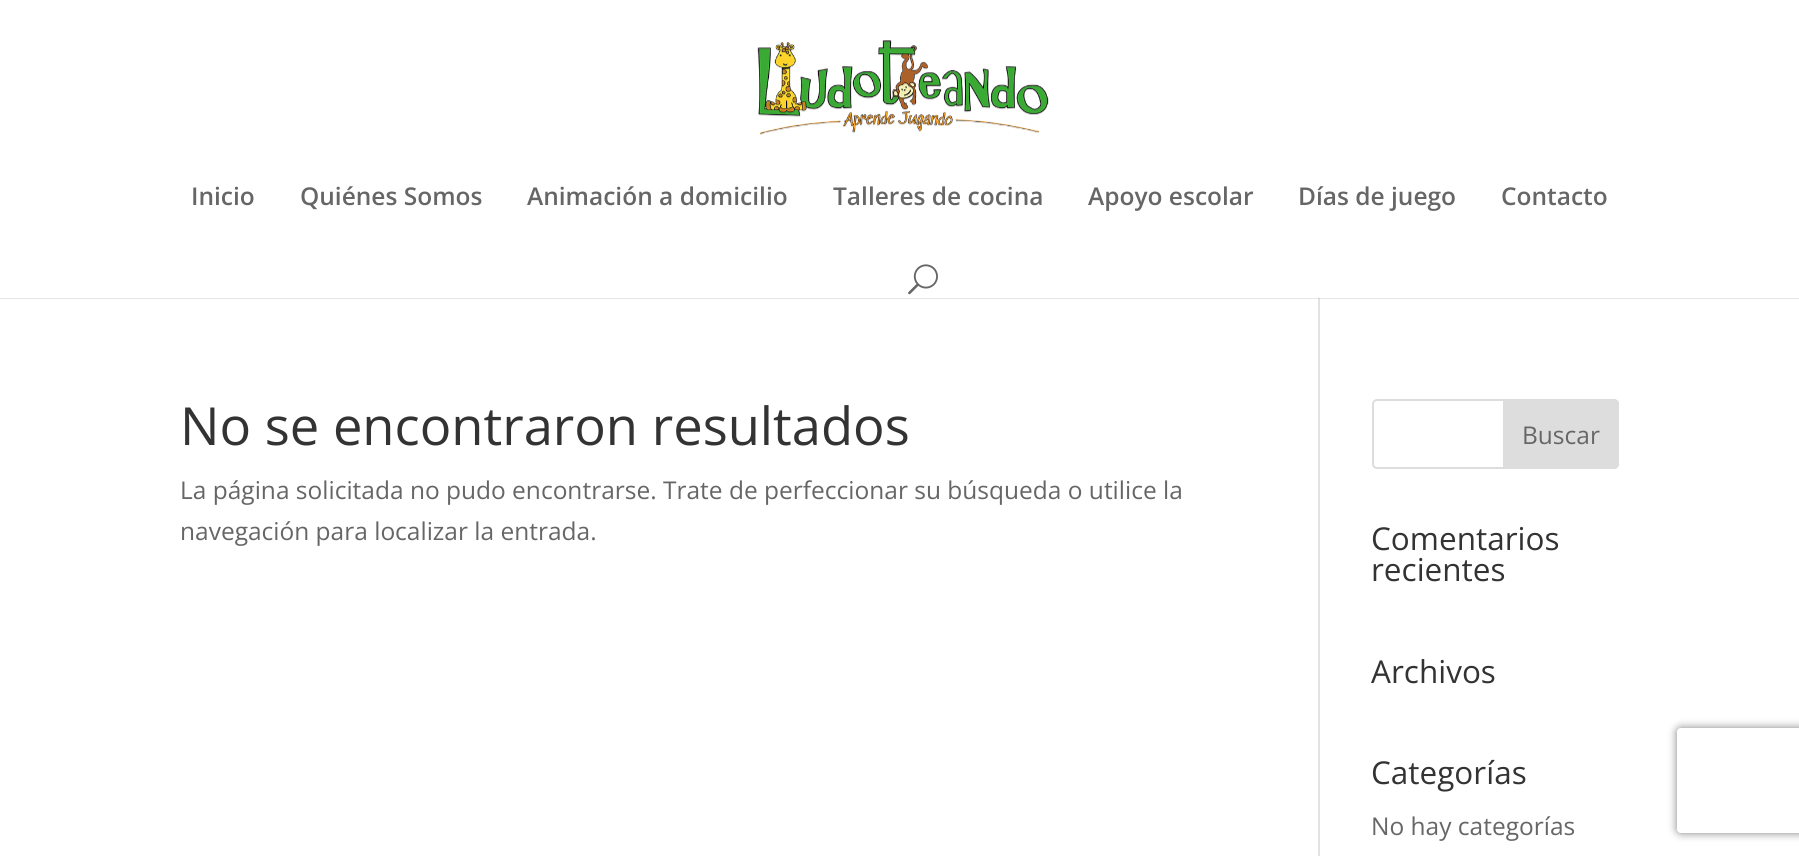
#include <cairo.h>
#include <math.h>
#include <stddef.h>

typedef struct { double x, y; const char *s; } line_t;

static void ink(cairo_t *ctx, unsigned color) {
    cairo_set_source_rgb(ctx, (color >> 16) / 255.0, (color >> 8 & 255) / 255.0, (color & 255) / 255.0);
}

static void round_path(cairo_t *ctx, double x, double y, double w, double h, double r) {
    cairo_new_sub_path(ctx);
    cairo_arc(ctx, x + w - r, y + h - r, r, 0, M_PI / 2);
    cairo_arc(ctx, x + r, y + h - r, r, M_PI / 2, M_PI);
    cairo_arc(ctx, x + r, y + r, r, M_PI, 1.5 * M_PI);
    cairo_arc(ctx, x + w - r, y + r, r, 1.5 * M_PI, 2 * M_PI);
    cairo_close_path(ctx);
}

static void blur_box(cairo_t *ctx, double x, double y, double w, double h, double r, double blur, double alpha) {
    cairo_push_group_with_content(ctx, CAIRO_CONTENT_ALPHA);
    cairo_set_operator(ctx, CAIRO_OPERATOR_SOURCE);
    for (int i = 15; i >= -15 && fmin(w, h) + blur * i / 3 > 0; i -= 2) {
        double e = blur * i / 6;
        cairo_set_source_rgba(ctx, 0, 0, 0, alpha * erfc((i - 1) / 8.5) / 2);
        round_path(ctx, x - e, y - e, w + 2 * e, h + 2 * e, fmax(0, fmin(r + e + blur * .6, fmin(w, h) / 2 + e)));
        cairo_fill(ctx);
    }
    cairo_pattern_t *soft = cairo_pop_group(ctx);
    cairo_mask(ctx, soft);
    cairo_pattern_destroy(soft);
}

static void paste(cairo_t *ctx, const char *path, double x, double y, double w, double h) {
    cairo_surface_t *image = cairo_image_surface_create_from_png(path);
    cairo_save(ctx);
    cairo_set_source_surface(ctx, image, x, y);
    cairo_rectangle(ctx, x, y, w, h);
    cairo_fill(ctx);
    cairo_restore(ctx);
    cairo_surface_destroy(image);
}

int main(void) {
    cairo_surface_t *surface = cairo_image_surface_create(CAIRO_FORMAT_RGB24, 1799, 856);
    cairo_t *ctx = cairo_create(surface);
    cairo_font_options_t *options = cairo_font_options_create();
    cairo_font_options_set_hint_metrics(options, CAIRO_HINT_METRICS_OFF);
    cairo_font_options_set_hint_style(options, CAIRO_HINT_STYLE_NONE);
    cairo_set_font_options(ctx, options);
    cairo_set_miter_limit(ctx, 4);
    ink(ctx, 0xFFFFFF);
    cairo_paint(ctx);
    ink(ctx, 0xE6E6E6);
    cairo_rectangle(ctx, 0, 298, 1799, 1);
    cairo_fill(ctx);
    paste(ctx, "media/1.png", 757, 40, 292, 95);
    cairo_select_font_face(ctx, "Open Sans SemiBold", CAIRO_FONT_SLANT_NORMAL, CAIRO_FONT_WEIGHT_NORMAL);
    cairo_set_font_size(ctx, 24.5);
    ink(ctx, 0x666666);
    {
        static const line_t items[] = {
            {191, 205, "Inicio"},
            {300, 205, "Quiénes Somos"},
            {527, 205, "Animación a domicilio"},
            {833, 205, "Talleres de cocina"},
            {1088, 205, "Apoyo escolar"},
            {1298, 205, "Días de juego"},
            {1501, 205, "Contacto"},
        };
        for (size_t i = 0; i < sizeof items / sizeof *items; i++) {
            cairo_move_to(ctx, items[i].x, items[i].y);
            cairo_show_text(ctx, items[i].s);
        }
    }
    paste(ctx, "media/2.png", 908, 264, 30, 31);
    ink(ctx, 0xE2E2E2);
    cairo_rectangle(ctx, 1318, 298, 2, 558);
    cairo_fill(ctx);
    ink(ctx, 0xCBCBCB);
    cairo_rectangle(ctx, 1318, 298, 2, 1);
    cairo_fill(ctx);
    cairo_select_font_face(ctx, "Open Sans", CAIRO_FONT_SLANT_NORMAL, CAIRO_FONT_WEIGHT_NORMAL);
    cairo_set_font_size(ctx, 52.5);
    ink(ctx, 0x333333);
    cairo_move_to(ctx, 180, 445);
    cairo_show_text(ctx, "No se encontraron resultados");
    cairo_set_font_size(ctx, 24.5);
    ink(ctx, 0x666666);
    cairo_move_to(ctx, 180, 499);
    cairo_show_text(ctx, "La página solicitada no pudo encontrarse. Trate de perfeccionar su búsqueda o utilice la");
    cairo_move_to(ctx, 180, 540);
    cairo_show_text(ctx, "navegación para localizar la entrada.");
    round_path(ctx, 1373, 400, 245, 68, 4);
    ink(ctx, 0xDDDDDD);
    cairo_stroke(ctx);
    cairo_new_path(ctx);
    cairo_move_to(ctx, 1504, 400);
    cairo_line_to(ctx, 1614, 400);
    cairo_curve_to(ctx, 1616, 400, 1618, 402, 1618, 404);
    cairo_line_to(ctx, 1618, 464);
    cairo_curve_to(ctx, 1618, 466, 1616, 468, 1614, 468);
    cairo_line_to(ctx, 1504, 468);
    cairo_close_path(ctx);
    cairo_fill_preserve(ctx);
    cairo_stroke(ctx);
    ink(ctx, 0x666666);
    cairo_move_to(ctx, 1522, 444);
    cairo_show_text(ctx, "Buscar");
    cairo_set_font_size(ctx, 31.5);
    ink(ctx, 0x333333);
    {
        static const line_t items[] = {
            {1371, 550, "Comentarios"},
            {1371, 581, "recientes"},
            {1371, 683, "Archivos"},
            {1371, 784, "Categorías"},
        };
        for (size_t i = 0; i < sizeof items / sizeof *items; i++) {
            cairo_move_to(ctx, items[i].x, items[i].y);
            cairo_show_text(ctx, items[i].s);
        }
    }
    cairo_set_font_size(ctx, 24.5);
    ink(ctx, 0x666666);
    cairo_move_to(ctx, 1371, 835);
    cairo_show_text(ctx, "No hay categorías");
    cairo_save(ctx);
    cairo_set_fill_rule(ctx, CAIRO_FILL_RULE_EVEN_ODD);
    cairo_new_path(ctx);
    cairo_move_to(ctx, 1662, 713);
    cairo_line_to(ctx, 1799, 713);
    cairo_line_to(ctx, 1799, 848);
    cairo_line_to(ctx, 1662, 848);
    cairo_close_path(ctx);
    cairo_move_to(ctx, 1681, 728);
    cairo_line_to(ctx, 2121, 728);
    cairo_curve_to(ctx, 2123, 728, 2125, 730, 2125, 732);
    cairo_line_to(ctx, 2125, 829);
    cairo_curve_to(ctx, 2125, 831, 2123, 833, 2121, 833);
    cairo_line_to(ctx, 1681, 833);
    cairo_curve_to(ctx, 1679, 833, 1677, 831, 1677, 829);
    cairo_line_to(ctx, 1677, 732);
    cairo_curve_to(ctx, 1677, 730, 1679, 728, 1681, 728);
    cairo_close_path(ctx);
    cairo_clip(ctx);
    ink(ctx, 0x808080);
    blur_box(ctx, 1677, 728, 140, 105, 4, 4.5, 1);
    cairo_restore(ctx);
    cairo_surface_write_to_png(surface, "image.png");
    cairo_font_options_destroy(options);
    cairo_destroy(ctx);
    cairo_surface_destroy(surface);
    return 0;
}
